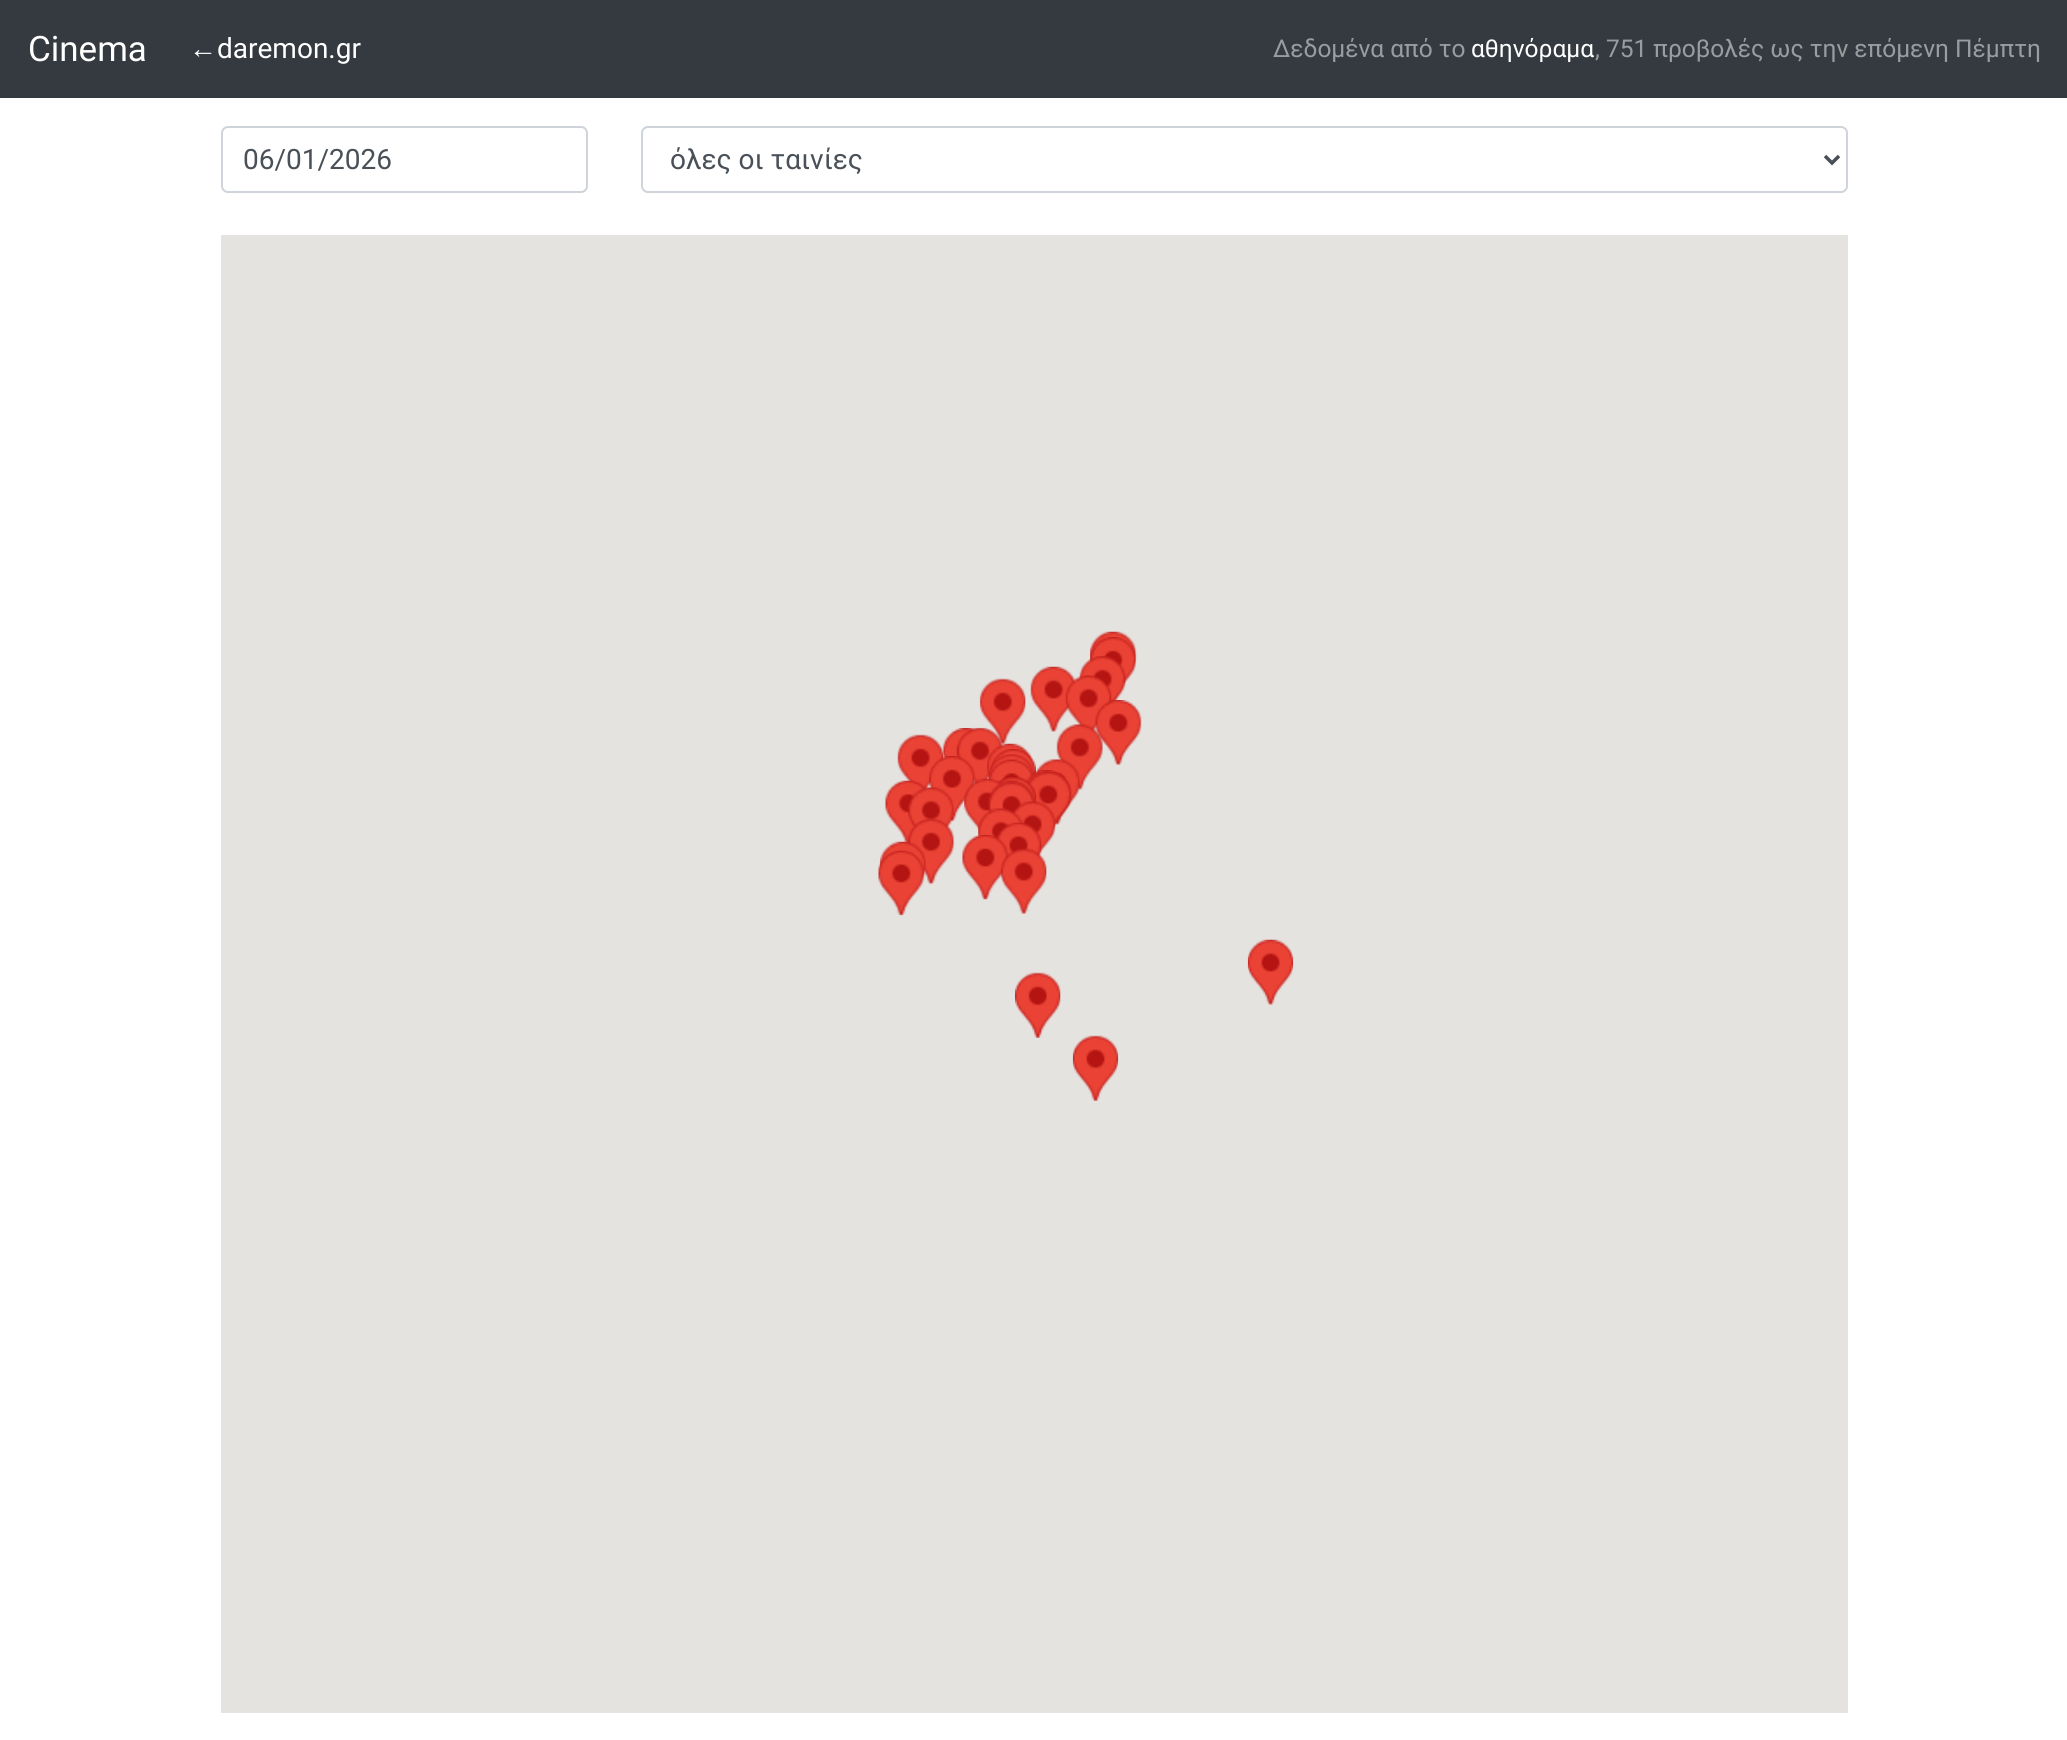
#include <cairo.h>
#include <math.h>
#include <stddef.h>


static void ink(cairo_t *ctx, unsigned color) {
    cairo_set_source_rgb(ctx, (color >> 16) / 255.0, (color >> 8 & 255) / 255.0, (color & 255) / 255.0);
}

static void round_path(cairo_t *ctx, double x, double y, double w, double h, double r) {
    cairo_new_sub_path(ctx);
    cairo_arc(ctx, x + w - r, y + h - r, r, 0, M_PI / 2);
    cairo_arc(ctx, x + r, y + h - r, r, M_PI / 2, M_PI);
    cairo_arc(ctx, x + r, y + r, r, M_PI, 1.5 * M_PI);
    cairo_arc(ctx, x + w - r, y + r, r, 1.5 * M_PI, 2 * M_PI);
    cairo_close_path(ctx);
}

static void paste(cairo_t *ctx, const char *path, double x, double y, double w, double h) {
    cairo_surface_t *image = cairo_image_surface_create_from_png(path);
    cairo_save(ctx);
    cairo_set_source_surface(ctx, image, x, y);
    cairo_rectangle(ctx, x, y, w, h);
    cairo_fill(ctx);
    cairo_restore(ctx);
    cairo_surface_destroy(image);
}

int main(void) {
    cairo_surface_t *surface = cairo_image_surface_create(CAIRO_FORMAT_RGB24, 2067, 1740);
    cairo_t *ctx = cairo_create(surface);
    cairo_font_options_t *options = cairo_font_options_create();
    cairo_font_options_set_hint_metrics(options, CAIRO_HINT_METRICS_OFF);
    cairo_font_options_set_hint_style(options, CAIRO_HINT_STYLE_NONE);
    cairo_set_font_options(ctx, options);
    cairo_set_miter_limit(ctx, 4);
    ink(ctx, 0xFFFFFF);
    cairo_paint(ctx);
    ink(ctx, 0x343A40);
    cairo_rectangle(ctx, 0, 0, 2067, 98);
    cairo_fill(ctx);
    cairo_select_font_face(ctx, "Roboto", CAIRO_FONT_SLANT_NORMAL, CAIRO_FONT_WEIGHT_NORMAL);
    cairo_set_font_size(ctx, 35);
    ink(ctx, 0xFFFFFF);
    cairo_move_to(ctx, 28, 61);
    cairo_show_text(ctx, "Cinema");
    cairo_select_font_face(ctx, "Liberation Sans", CAIRO_FONT_SLANT_NORMAL, CAIRO_FONT_WEIGHT_NORMAL);
    cairo_set_font_size(ctx, 28);
    cairo_move_to(ctx, 189, 58);
    cairo_show_text(ctx, "←");
    cairo_select_font_face(ctx, "Roboto", CAIRO_FONT_SLANT_NORMAL, CAIRO_FONT_WEIGHT_NORMAL);
    cairo_move_to(ctx, 217, 58);
    cairo_show_text(ctx, "daremon.gr");
    cairo_set_font_size(ctx, 24.5);
    ink(ctx, 0x9A9DA0);
    cairo_move_to(ctx, 1273, 57);
    cairo_show_text(ctx, "Δεδομένα από το");
    ink(ctx, 0xFFFFFF);
    cairo_move_to(ctx, 1471, 57);
    cairo_show_text(ctx, "αθηνόραμα");
    ink(ctx, 0x9A9DA0);
    cairo_move_to(ctx, 1595, 57);
    cairo_show_text(ctx, ", 751 προβολές ως την επόμενη Πέμπτη");
    round_path(ctx, 222, 127, 365, 65, 6);
    ink(ctx, 0xCED4DA);
    cairo_stroke(ctx);
    cairo_set_font_size(ctx, 28);
    ink(ctx, 0x495057);
    cairo_move_to(ctx, 243, 169);
    cairo_show_text(ctx, "06/01/2026");
    round_path(ctx, 642, 127, 1205, 65, 6);
    ink(ctx, 0xCED4DA);
    cairo_stroke(ctx);
    cairo_new_path(ctx);
    cairo_move_to(ctx, 1825, 156);
    cairo_line_to(ctx, 1832, 163);
    cairo_line_to(ctx, 1839, 156);
    ink(ctx, 0x495057);
    cairo_set_line_width(ctx, 3.5);
    cairo_stroke(ctx);
    cairo_move_to(ctx, 670, 169);
    cairo_show_text(ctx, "όλες οι ταινίες");
    ink(ctx, 0xE5E3DF);
    cairo_rectangle(ctx, 221, 235, 1627, 1478);
    cairo_fill(ctx);
    paste(ctx, "media/1.png", 1090, 631, 47, 66);
    paste(ctx, "media/2.png", 1089, 637, 48, 65);
    paste(ctx, "media/3.png", 1030, 666, 47, 66);
    paste(ctx, "media/4.png", 1079, 656, 47, 63);
    paste(ctx, "media/5.png", 979, 678, 47, 67);
    paste(ctx, "media/6.png", 1065, 675, 47, 58);
    paste(ctx, "media/7.png", 1095, 700, 47, 65);
    paste(ctx, "media/11.png", 942, 728, 37, 65);
    paste(ctx, "media/8.png", 957, 727, 47, 59);
    paste(ctx, "media/9.png", 1056, 724, 47, 66);
    paste(ctx, "media/10.png", 897, 734, 47, 57);
    paste(ctx, "media/12.png", 987, 743, 46, 39);
    paste(ctx, "media/13.png", 990, 749, 46, 32);
    paste(ctx, "media/14.png", 929, 756, 47, 65);
    paste(ctx, "media/15.png", 988, 754, 47, 28);
    paste(ctx, "media/17.png", 1034, 759, 46, 66);
    paste(ctx, "media/16.png", 988, 759, 47, 26);
    paste(ctx, "media/18.png", 1025, 770, 45, 58);
    paste(ctx, "media/21.png", 1026, 772, 46, 65);
    paste(ctx, "media/19.png", 1026, 771, 46, 66);
    paste(ctx, "media/20.png", 996, 777, 41, 28);
    paste(ctx, "media/22.png", 885, 780, 44, 65);
    paste(ctx, "media/24.png", 996, 777, 40, 28);
    paste(ctx, "media/23.png", 964, 778, 40, 59);
    paste(ctx, "media/25.png", 988, 780, 46, 33);
    paste(ctx, "media/26.png", 908, 787, 46, 43);
    paste(ctx, "media/27.png", 988, 782, 47, 33);
    paste(ctx, "media/28.png", 908, 819, 47, 66);
    paste(ctx, "media/30.png", 1011, 801, 45, 57);
    paste(ctx, "media/29.png", 978, 808, 46, 66);
    paste(ctx, "media/31.png", 880, 841, 46, 66);
    paste(ctx, "media/33.png", 995, 822, 47, 42);
    paste(ctx, "media/32.png", 962, 835, 47, 65);
    paste(ctx, "media/34.png", 878, 850, 47, 66);
    paste(ctx, "media/35.png", 1000, 848, 47, 66);
    paste(ctx, "media/36.png", 1015, 972, 46, 66);
    paste(ctx, "media/37.png", 1247, 939, 47, 66);
    paste(ctx, "media/38.png", 1072, 1035, 47, 66);
    cairo_surface_write_to_png(surface, "image.png");
    cairo_font_options_destroy(options);
    cairo_destroy(ctx);
    cairo_surface_destroy(surface);
    return 0;
}
